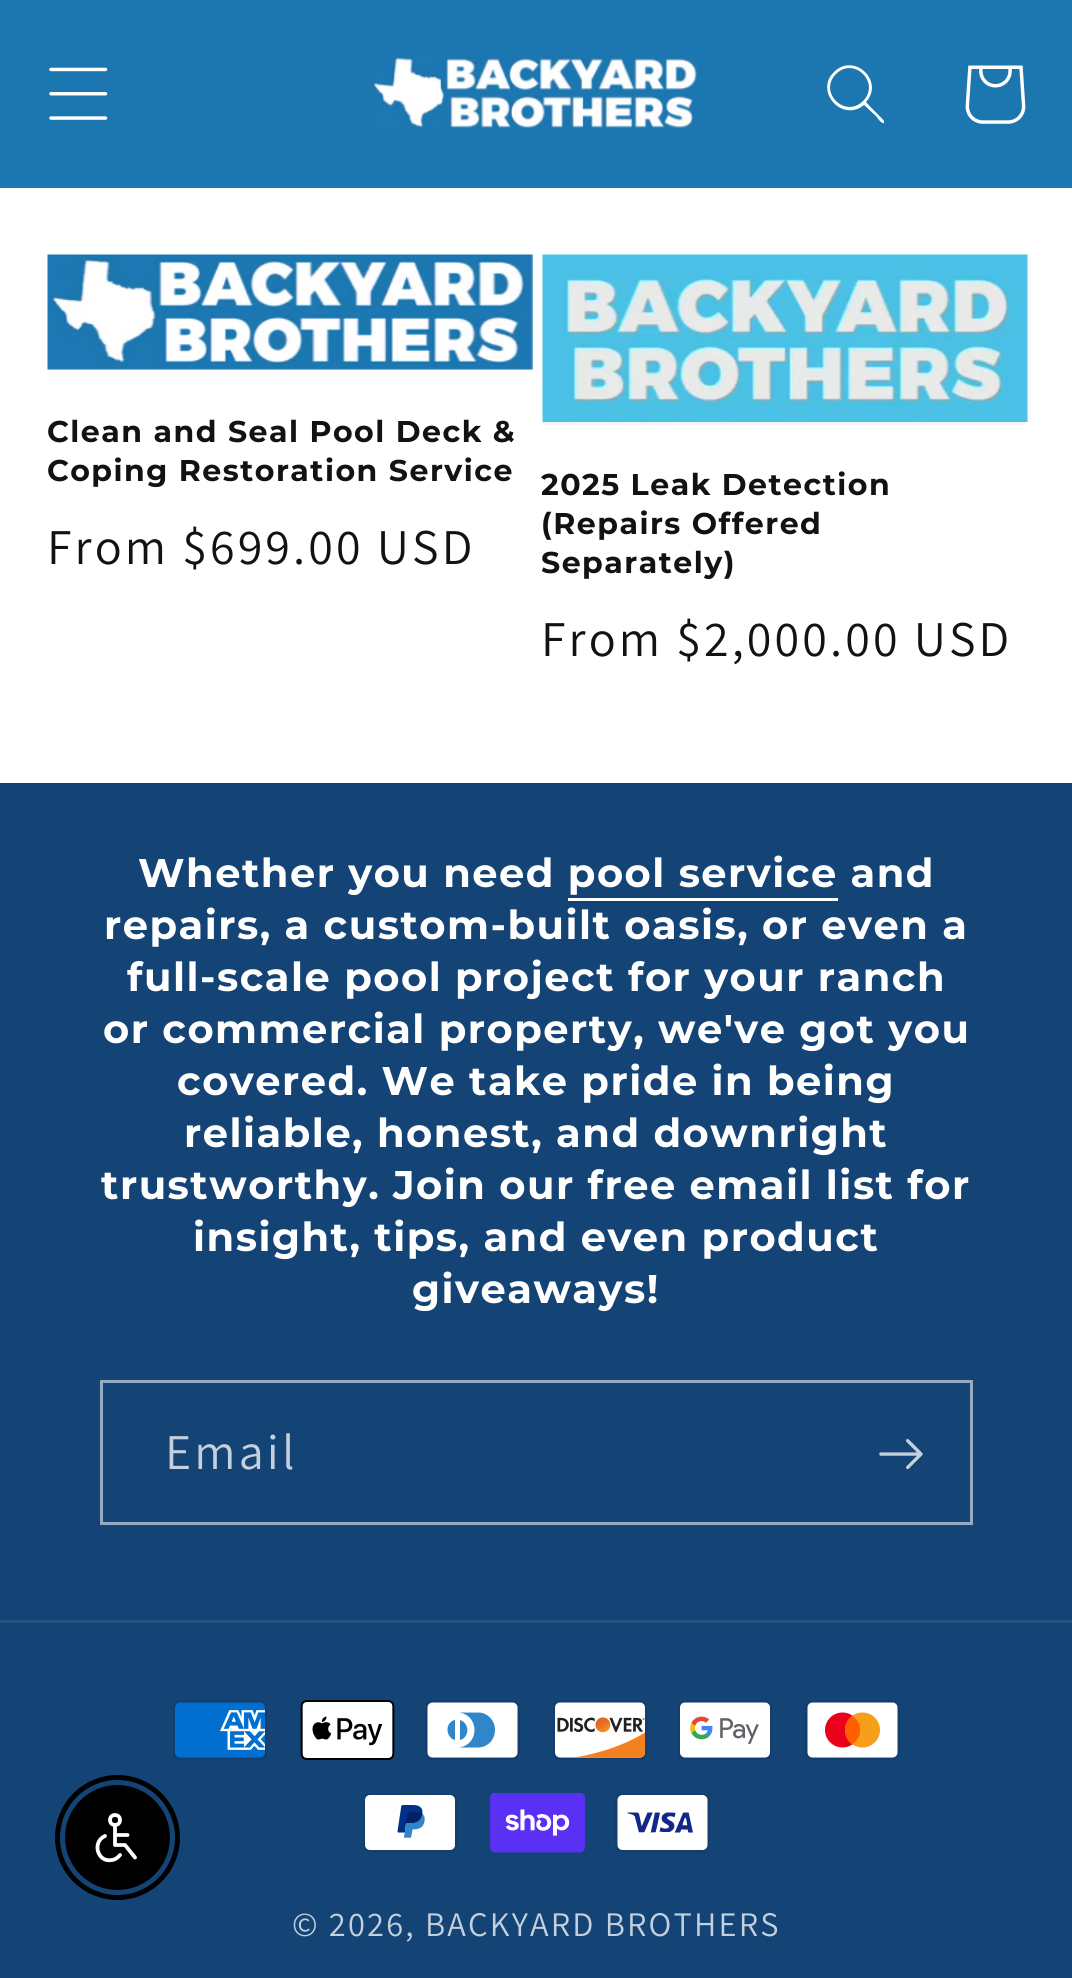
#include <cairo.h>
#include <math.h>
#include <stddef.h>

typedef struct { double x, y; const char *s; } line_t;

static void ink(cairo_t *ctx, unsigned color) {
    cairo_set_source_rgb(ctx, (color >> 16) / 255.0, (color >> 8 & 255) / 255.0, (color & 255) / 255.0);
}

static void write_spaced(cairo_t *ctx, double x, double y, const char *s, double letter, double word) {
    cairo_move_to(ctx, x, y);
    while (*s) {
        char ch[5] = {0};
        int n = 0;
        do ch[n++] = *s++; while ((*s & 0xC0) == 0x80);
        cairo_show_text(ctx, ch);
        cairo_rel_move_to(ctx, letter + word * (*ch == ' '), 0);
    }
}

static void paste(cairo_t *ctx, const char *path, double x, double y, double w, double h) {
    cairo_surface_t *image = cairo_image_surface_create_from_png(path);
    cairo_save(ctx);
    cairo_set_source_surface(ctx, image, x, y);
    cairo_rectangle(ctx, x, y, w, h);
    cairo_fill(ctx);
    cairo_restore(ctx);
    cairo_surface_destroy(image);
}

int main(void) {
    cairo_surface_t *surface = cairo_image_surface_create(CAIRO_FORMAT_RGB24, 1072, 1978);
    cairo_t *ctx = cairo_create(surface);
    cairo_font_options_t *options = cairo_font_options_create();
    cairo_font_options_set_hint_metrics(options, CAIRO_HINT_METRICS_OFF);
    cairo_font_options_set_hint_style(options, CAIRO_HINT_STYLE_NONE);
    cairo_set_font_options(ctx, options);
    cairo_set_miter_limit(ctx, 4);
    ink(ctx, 0xFFFFFF);
    cairo_paint(ctx);
    ink(ctx, 0x1C77B1);
    cairo_rectangle(ctx, 0, 0, 1072, 188);
    cairo_fill(ctx);
    paste(ctx, "media/1.png", 49, 67, 59, 53);
    paste(ctx, "media/2.png", 370, 54, 329, 78);
    ink(ctx, 0xFFFFFF);
    cairo_set_fill_rule(ctx, CAIRO_FILL_RULE_EVEN_ODD);
    cairo_new_path(ctx);
    cairo_move_to(ctx, 863, 101);
    cairo_curve_to(ctx, 845, 119, 818, 92, 836, 74);
    cairo_curve_to(ctx, 854, 56, 881, 83, 863, 101);
    cairo_close_path(ctx);
    cairo_move_to(ctx, 864, 105);
    cairo_curve_to(ctx, 842, 123, 814, 91, 834, 72);
    cairo_curve_to(ctx, 854, 52, 885, 81, 866, 102);
    cairo_curve_to(ctx, 868, 105, 884, 120, 884, 121);
    cairo_line_to(ctx, 884, 123);
    cairo_curve_to(ctx, 881, 124, 877, 117, 876, 116);
    cairo_close_path(ctx);
    cairo_fill(ctx);
    paste(ctx, "media/3.png", 965, 65, 61, 59);
    ink(ctx, 0xF3F3F3);
    cairo_rectangle(ctx, 48, 255, 485, 115);
    cairo_fill(ctx);
    paste(ctx, "media/4.png", 47, 254, 486, 116);
    cairo_select_font_face(ctx, "Montserrat", CAIRO_FONT_SLANT_NORMAL, CAIRO_FONT_WEIGHT_BOLD);
    cairo_set_font_size(ctx, 30);
    ink(ctx, 0x121212);
    write_spaced(ctx, 47, 442, "Clean and Seal Pool Deck &", 1.5, 0);
    write_spaced(ctx, 47, 481, "Coping Restoration Service", 1.5, 0);
    cairo_select_font_face(ctx, "Assistant", CAIRO_FONT_SLANT_NORMAL, CAIRO_FONT_WEIGHT_NORMAL);
    cairo_set_font_size(ctx, 50);
    write_spaced(ctx, 47, 564, "From $699.00 USD", 3.1, 0);
    ink(ctx, 0xF3F3F3);
    cairo_rectangle(ctx, 543, 422, 482, 3);
    cairo_fill(ctx);
    paste(ctx, "media/5.png", 542, 254, 486, 168);
    cairo_select_font_face(ctx, "Montserrat", CAIRO_FONT_SLANT_NORMAL, CAIRO_FONT_WEIGHT_BOLD);
    cairo_set_font_size(ctx, 30);
    ink(ctx, 0x121212);
    {
        static const line_t items[] = {
            {541, 495, "2025 Leak Detection"},
            {541, 534, "(Repairs Offered"},
            {541, 573, "Separately)"},
        };
        for (size_t i = 0; i < sizeof items / sizeof *items; i++) {
            write_spaced(ctx, items[i].x, items[i].y, items[i].s, 1.5, 0);
        }
    }
    cairo_select_font_face(ctx, "Assistant", CAIRO_FONT_SLANT_NORMAL, CAIRO_FONT_WEIGHT_NORMAL);
    cairo_set_font_size(ctx, 50);
    write_spaced(ctx, 541, 656, "From $2,000.00 USD", 3.1, 0);
    ink(ctx, 0x144375);
    cairo_rectangle(ctx, 0, 783, 1072, 1195);
    cairo_fill(ctx);
    cairo_select_font_face(ctx, "Montserrat", CAIRO_FONT_SLANT_NORMAL, CAIRO_FONT_WEIGHT_BOLD);
    cairo_set_font_size(ctx, 40);
    ink(ctx, 0xFFFFFF);
    write_spaced(ctx, 138, 887, "Whether you need pool service and", 1.5, 0);
    cairo_rectangle(ctx, 568, 898, 270, 3);
    cairo_fill(ctx);
    {
        static const line_t items[] = {
            {104, 939, "repairs, a custom-built oasis, or even a"},
            {127, 991, "full-scale pool project for your ranch"},
            {103, 1043, "or commercial property, we've got you"},
            {177, 1095, "covered. We take pride in being"},
            {184, 1147, "reliable, honest, and downright"},
            {101, 1199, "trustworthy. Join our free email list for"},
            {193, 1251, "insight, tips, and even product"},
            {412, 1303, "giveaways!"},
        };
        for (size_t i = 0; i < sizeof items / sizeof *items; i++) {
            write_spaced(ctx, items[i].x, items[i].y, items[i].s, 1.5, 0);
        }
    }
    cairo_rectangle(ctx, 101.5, 1381.5, 870, 142);
    ink(ctx, 0x95AAC1);
    cairo_set_line_width(ctx, 3);
    cairo_stroke(ctx);
    cairo_select_font_face(ctx, "Assistant", CAIRO_FONT_SLANT_NORMAL, CAIRO_FONT_WEIGHT_NORMAL);
    cairo_set_font_size(ctx, 50);
    ink(ctx, 0xC4D0DD);
    write_spaced(ctx, 165, 1469, "Email", 3.1, 0);
    paste(ctx, "media/6.png", 879, 1439, 44, 31);
    ink(ctx, 0x275280);
    cairo_rectangle(ctx, 0, 1620, 1072, 3);
    cairo_fill(ctx);
    paste(ctx, "media/7.png", 173, 1700, 95, 60);
    paste(ctx, "media/8.png", 300, 1700, 95, 60);
    paste(ctx, "media/9.png", 425, 1700, 95, 60);
    paste(ctx, "media/10.png", 553, 1700, 95, 60);
    paste(ctx, "media/11.png", 678, 1700, 95, 60);
    paste(ctx, "media/12.png", 805, 1700, 95, 60);
    paste(ctx, "media/13.png", 363, 1793, 95, 60);
    paste(ctx, "media/14.png", 490, 1793, 95, 60);
    paste(ctx, "media/15.png", 615, 1793, 95, 60);
    cairo_set_font_size(ctx, 34.4);
    ink(ctx, 0xC4D0DD);
    write_spaced(ctx, 292, 1936, "© 2026, BACKYARD BROTHERS", 2.2, 0);
    cairo_new_path(ctx);
    cairo_arc(ctx, 117.5, 1837.5, 60, 0, 2 * M_PI);
    ink(ctx, 0x000000);
    cairo_set_line_width(ctx, 5);
    cairo_stroke(ctx);
    cairo_arc(ctx, 117.5, 1837.5, 51, 0, 2 * M_PI);
    cairo_fill_preserve(ctx);
    cairo_set_line_width(ctx, 3);
    cairo_stroke(ctx);
    cairo_arc(ctx, 115, 1820, 5, 0, 2 * M_PI);
    ink(ctx, 0xFFFFFF);
    cairo_set_line_width(ctx, 3.8);
    cairo_stroke(ctx);
    cairo_new_path(ctx);
    cairo_move_to(ctx, 115, 1825);
    cairo_line_to(ctx, 115, 1845);
    cairo_line_to(ctx, 125, 1845);
    cairo_line_to(ctx, 135, 1857.5);
    cairo_move_to(ctx, 115, 1835);
    cairo_line_to(ctx, 127.5, 1835);
    cairo_move_to(ctx, 105, 1836);
    cairo_curve_to(ctx, 91.5, 1842, 97.5, 1863, 112, 1860);
    cairo_curve_to(ctx, 115.5, 1859.5, 118, 1857.5, 120, 1855);
    cairo_set_line_cap(ctx, CAIRO_LINE_CAP_ROUND);
    cairo_set_line_join(ctx, CAIRO_LINE_JOIN_ROUND);
    cairo_stroke(ctx);
    cairo_surface_write_to_png(surface, "image.png");
    cairo_font_options_destroy(options);
    cairo_destroy(ctx);
    cairo_surface_destroy(surface);
    return 0;
}
